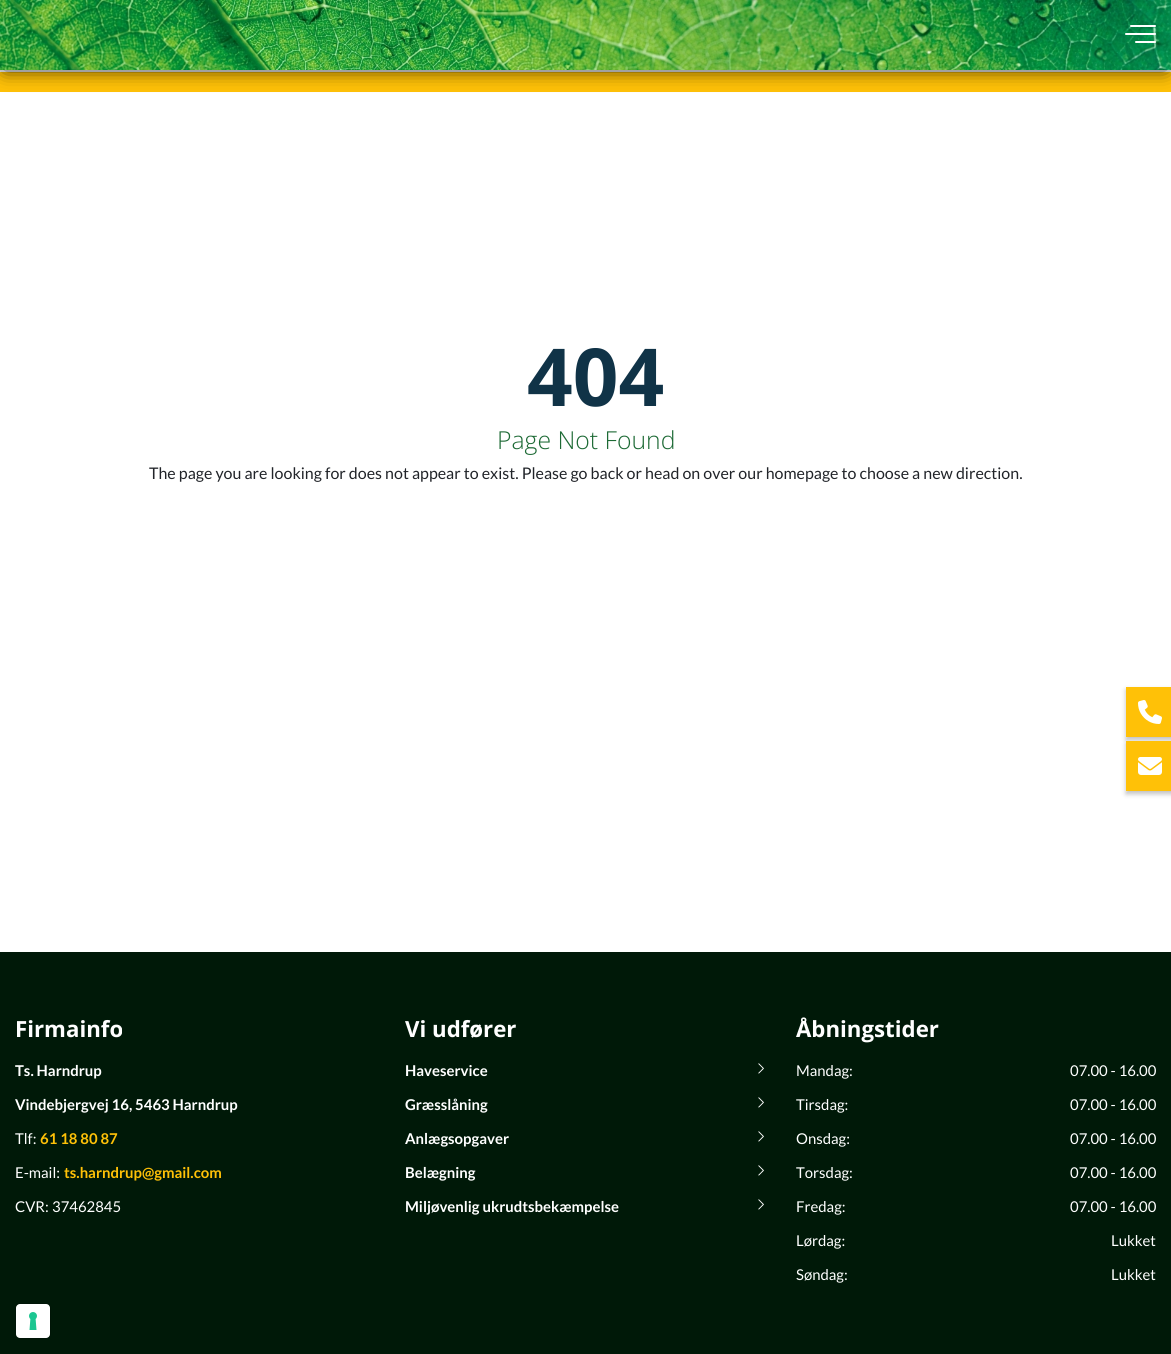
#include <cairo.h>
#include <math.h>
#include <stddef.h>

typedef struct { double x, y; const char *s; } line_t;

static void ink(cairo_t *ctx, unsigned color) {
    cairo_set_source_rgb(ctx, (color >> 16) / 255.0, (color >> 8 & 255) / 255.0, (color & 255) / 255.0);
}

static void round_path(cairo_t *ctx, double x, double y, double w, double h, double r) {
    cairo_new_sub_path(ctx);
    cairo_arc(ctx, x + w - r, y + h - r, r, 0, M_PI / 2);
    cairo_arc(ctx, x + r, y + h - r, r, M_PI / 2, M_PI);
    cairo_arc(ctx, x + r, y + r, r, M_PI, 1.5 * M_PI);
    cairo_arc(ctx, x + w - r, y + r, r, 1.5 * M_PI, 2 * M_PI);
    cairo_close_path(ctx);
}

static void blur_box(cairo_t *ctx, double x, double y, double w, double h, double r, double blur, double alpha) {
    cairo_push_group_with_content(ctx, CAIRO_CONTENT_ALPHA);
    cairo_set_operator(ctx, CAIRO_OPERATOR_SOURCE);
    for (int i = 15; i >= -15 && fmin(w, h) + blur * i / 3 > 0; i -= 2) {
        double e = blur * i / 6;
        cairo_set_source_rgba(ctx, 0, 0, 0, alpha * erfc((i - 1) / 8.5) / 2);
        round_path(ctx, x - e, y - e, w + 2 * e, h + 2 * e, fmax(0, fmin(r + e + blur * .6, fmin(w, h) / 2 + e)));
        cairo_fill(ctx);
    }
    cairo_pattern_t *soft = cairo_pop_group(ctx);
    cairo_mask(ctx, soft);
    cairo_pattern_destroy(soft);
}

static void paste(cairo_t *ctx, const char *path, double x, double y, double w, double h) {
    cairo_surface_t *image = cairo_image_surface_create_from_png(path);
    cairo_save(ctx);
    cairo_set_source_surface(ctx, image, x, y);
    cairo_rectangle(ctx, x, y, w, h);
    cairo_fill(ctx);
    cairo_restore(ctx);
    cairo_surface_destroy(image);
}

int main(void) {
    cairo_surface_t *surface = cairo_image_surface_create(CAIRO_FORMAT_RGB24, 1171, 1354);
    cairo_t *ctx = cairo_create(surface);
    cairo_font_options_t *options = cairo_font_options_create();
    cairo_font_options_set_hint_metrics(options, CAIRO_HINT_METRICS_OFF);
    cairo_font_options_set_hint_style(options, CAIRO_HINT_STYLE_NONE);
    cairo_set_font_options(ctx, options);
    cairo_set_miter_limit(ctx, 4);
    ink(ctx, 0x001908);
    cairo_paint(ctx);
    ink(ctx, 0xFFFFFF);
    cairo_rectangle(ctx, 0, 70, 1171, 882);
    cairo_fill(ctx);
    ink(ctx, 0xFFC107);
    cairo_rectangle(ctx, 0, 72, 1171, 20);
    cairo_fill(ctx);
    ink(ctx, 0x000000);
    blur_box(ctx, 5, 8, 1161, 60, 0, 10, 1);
    paste(ctx, "media/1.png", 0, 0, 1171, 70);
    ink(ctx, 0xFFFFFF);
    round_path(ctx, 1125, 33, 31, 2, 1);
    cairo_fill(ctx);
    round_path(ctx, 1130, 25, 26, 2, 1);
    cairo_fill(ctx);
    round_path(ctx, 1135, 41, 21, 2, 1);
    cairo_fill(ctx);
    cairo_select_font_face(ctx, "Open Sans", CAIRO_FONT_SLANT_NORMAL, CAIRO_FONT_WEIGHT_BOLD);
    cairo_set_font_size(ctx, 80);
    ink(ctx, 0x103347);
    cairo_move_to(ctx, 527, 406);
    cairo_show_text(ctx, "404");
    cairo_select_font_face(ctx, "Open Sans Light", CAIRO_FONT_SLANT_NORMAL, CAIRO_FONT_WEIGHT_NORMAL);
    cairo_set_font_size(ctx, 24.75);
    ink(ctx, 0x1D6A35);
    cairo_move_to(ctx, 497, 449);
    cairo_show_text(ctx, "Page Not Found");
    cairo_select_font_face(ctx, "Lato", CAIRO_FONT_SLANT_NORMAL, CAIRO_FONT_WEIGHT_NORMAL);
    cairo_set_font_size(ctx, 16);
    ink(ctx, 0x212429);
    cairo_move_to(ctx, 149, 479);
    cairo_show_text(ctx, "The page you are looking for does not appear to exist. Please go back or head on over our homepage to choose a new direction.");
    ink(ctx, 0x000000);
    blur_box(ctx, 1126, 690, 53, 50, 0, 2.5, 0.25);
    ink(ctx, 0xFFC107);
    cairo_rectangle(ctx, 1126, 687, 45, 50);
    cairo_fill(ctx);
    paste(ctx, "media/2.png", 1138, 700, 24, 24);
    ink(ctx, 0x000000);
    blur_box(ctx, 1126, 744, 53, 50, 0, 2.5, 0.25);
    ink(ctx, 0xFFC107);
    cairo_rectangle(ctx, 1126, 741, 45, 50);
    cairo_fill(ctx);
    paste(ctx, "media/3.png", 1138, 757, 24, 18);
    cairo_select_font_face(ctx, "Open Sans", CAIRO_FONT_SLANT_NORMAL, CAIRO_FONT_WEIGHT_BOLD);
    cairo_set_font_size(ctx, 22.25);
    ink(ctx, 0xFFFFFF);
    cairo_move_to(ctx, 15, 1037);
    cairo_show_text(ctx, "Firmainfo");
    cairo_select_font_face(ctx, "Lato", CAIRO_FONT_SLANT_NORMAL, CAIRO_FONT_WEIGHT_BOLD);
    cairo_set_font_size(ctx, 14.9);
    cairo_move_to(ctx, 15, 1076);
    cairo_show_text(ctx, "Ts. Harndrup");
    cairo_move_to(ctx, 15, 1110);
    cairo_show_text(ctx, "Vindebjergvej 16, 5463 Harndrup");
    cairo_select_font_face(ctx, "Lato", CAIRO_FONT_SLANT_NORMAL, CAIRO_FONT_WEIGHT_NORMAL);
    cairo_move_to(ctx, 15, 1144);
    cairo_show_text(ctx, "Tlf:");
    cairo_select_font_face(ctx, "Lato", CAIRO_FONT_SLANT_NORMAL, CAIRO_FONT_WEIGHT_BOLD);
    ink(ctx, 0xFFC107);
    cairo_move_to(ctx, 40, 1144);
    cairo_show_text(ctx, "61 18 80 87");
    cairo_select_font_face(ctx, "Lato", CAIRO_FONT_SLANT_NORMAL, CAIRO_FONT_WEIGHT_NORMAL);
    ink(ctx, 0xFFFFFF);
    cairo_move_to(ctx, 15, 1178);
    cairo_show_text(ctx, "E-mail:");
    cairo_select_font_face(ctx, "Lato", CAIRO_FONT_SLANT_NORMAL, CAIRO_FONT_WEIGHT_BOLD);
    ink(ctx, 0xFFC107);
    cairo_move_to(ctx, 64, 1178);
    cairo_show_text(ctx, "ts.harndrup@gmail.com");
    cairo_select_font_face(ctx, "Lato", CAIRO_FONT_SLANT_NORMAL, CAIRO_FONT_WEIGHT_NORMAL);
    ink(ctx, 0xFFFFFF);
    cairo_move_to(ctx, 15, 1212);
    cairo_show_text(ctx, "CVR:");
    cairo_move_to(ctx, 52, 1212);
    cairo_show_text(ctx, "37462845");
    cairo_select_font_face(ctx, "Open Sans", CAIRO_FONT_SLANT_NORMAL, CAIRO_FONT_WEIGHT_BOLD);
    cairo_set_font_size(ctx, 22.25);
    cairo_move_to(ctx, 405, 1037);
    cairo_show_text(ctx, "Vi udfører");
    cairo_select_font_face(ctx, "Lato", CAIRO_FONT_SLANT_NORMAL, CAIRO_FONT_WEIGHT_BOLD);
    cairo_set_font_size(ctx, 14.9);
    cairo_move_to(ctx, 405, 1076);
    cairo_show_text(ctx, "Haveservice");
    paste(ctx, "media/4.png", 758, 1063, 6, 11);
    cairo_move_to(ctx, 405, 1110);
    cairo_show_text(ctx, "Græsslåning");
    paste(ctx, "media/4.png", 758, 1097, 6, 11);
    cairo_move_to(ctx, 405, 1144);
    cairo_show_text(ctx, "Anlægsopgaver");
    paste(ctx, "media/4.png", 758, 1131, 6, 11);
    cairo_move_to(ctx, 405, 1178);
    cairo_show_text(ctx, "Belægning");
    paste(ctx, "media/4.png", 758, 1165, 6, 11);
    cairo_move_to(ctx, 405, 1212);
    cairo_show_text(ctx, "Miljøvenlig ukrudtsbekæmpelse");
    paste(ctx, "media/4.png", 758, 1199, 6, 11);
    cairo_select_font_face(ctx, "Open Sans", CAIRO_FONT_SLANT_NORMAL, CAIRO_FONT_WEIGHT_BOLD);
    cairo_set_font_size(ctx, 22.25);
    cairo_move_to(ctx, 796, 1037);
    cairo_show_text(ctx, "Åbningstider");
    cairo_select_font_face(ctx, "Lato", CAIRO_FONT_SLANT_NORMAL, CAIRO_FONT_WEIGHT_NORMAL);
    cairo_set_font_size(ctx, 14.9);
    {
        static const line_t items[] = {
            {796, 1076, "Mandag:"},
            {1070, 1076, "07.00 - 16.00"},
            {796, 1110, "Tirsdag:"},
            {1070, 1110, "07.00 - 16.00"},
            {796, 1144, "Onsdag:"},
            {1070, 1144, "07.00 - 16.00"},
            {796, 1178, "Torsdag:"},
            {1070, 1178, "07.00 - 16.00"},
            {796, 1212, "Fredag:"},
            {1070, 1212, "07.00 - 16.00"},
            {796, 1246, "Lørdag:"},
            {1111, 1246, "Lukket"},
            {796, 1280, "Søndag:"},
            {1111, 1280, "Lukket"},
        };
        for (size_t i = 0; i < sizeof items / sizeof *items; i++) {
            cairo_move_to(ctx, items[i].x, items[i].y);
            cairo_show_text(ctx, items[i].s);
        }
    }
    round_path(ctx, 15.5, 1303.5, 35, 35, 4.5);
    ink(ctx, 0x001507);
    cairo_set_line_width(ctx, 1);
    cairo_stroke(ctx);
    ink(ctx, 0xFFFFFF);
    round_path(ctx, 16, 1304, 34, 34, 4);
    cairo_fill(ctx);
    paste(ctx, "media/5.png", 29, 1312, 8, 18);
    cairo_surface_write_to_png(surface, "image.png");
    cairo_font_options_destroy(options);
    cairo_destroy(ctx);
    cairo_surface_destroy(surface);
    return 0;
}
